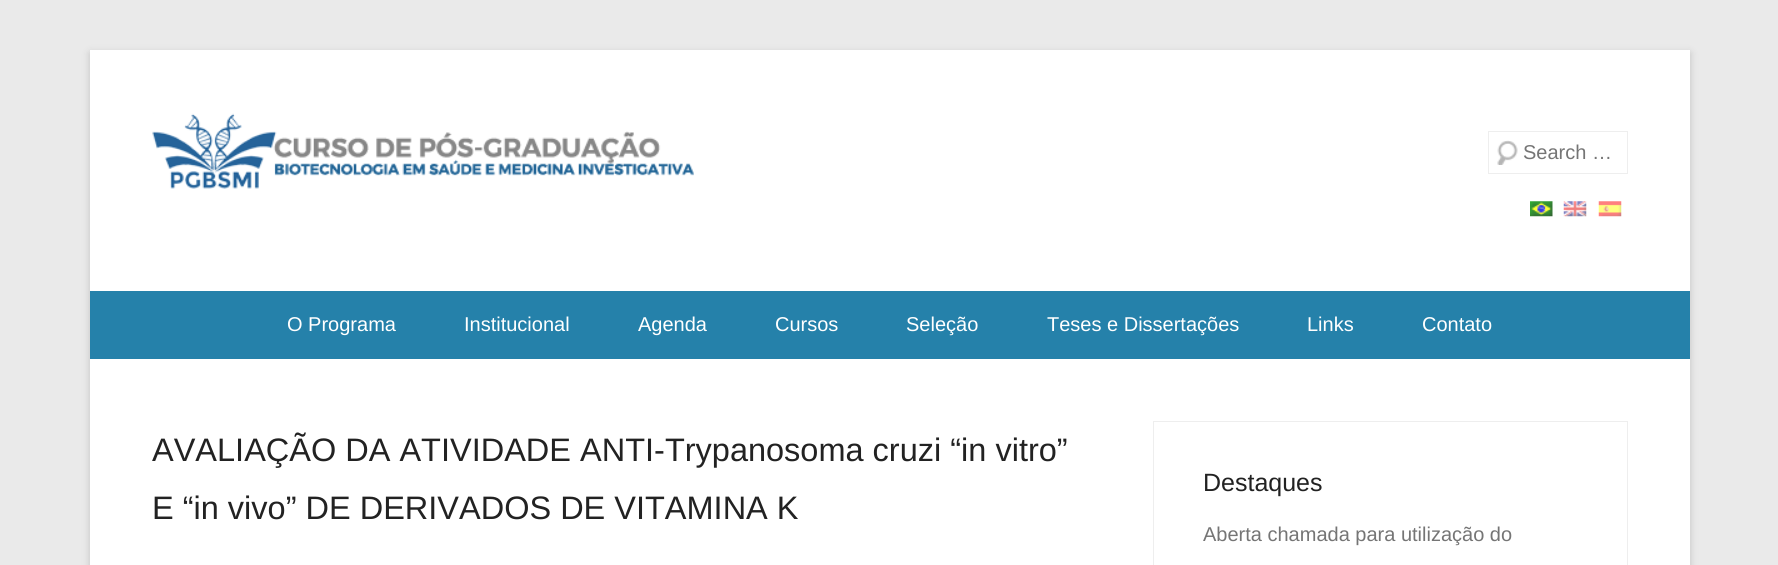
#include <cairo.h>
#include <math.h>
#include <stddef.h>

typedef struct { double x, y; const char *s; } line_t;

static void ink(cairo_t *ctx, unsigned color) {
    cairo_set_source_rgb(ctx, (color >> 16) / 255.0, (color >> 8 & 255) / 255.0, (color & 255) / 255.0);
}

static void round_path(cairo_t *ctx, double x, double y, double w, double h, double r) {
    cairo_new_sub_path(ctx);
    cairo_arc(ctx, x + w - r, y + h - r, r, 0, M_PI / 2);
    cairo_arc(ctx, x + r, y + h - r, r, M_PI / 2, M_PI);
    cairo_arc(ctx, x + r, y + r, r, M_PI, 1.5 * M_PI);
    cairo_arc(ctx, x + w - r, y + r, r, 1.5 * M_PI, 2 * M_PI);
    cairo_close_path(ctx);
}

static void blur_box(cairo_t *ctx, double x, double y, double w, double h, double r, double blur, double alpha) {
    cairo_push_group_with_content(ctx, CAIRO_CONTENT_ALPHA);
    cairo_set_operator(ctx, CAIRO_OPERATOR_SOURCE);
    for (int i = 15; i >= -15 && fmin(w, h) + blur * i / 3 > 0; i -= 2) {
        double e = blur * i / 6;
        cairo_set_source_rgba(ctx, 0, 0, 0, alpha * erfc((i - 1) / 8.5) / 2);
        round_path(ctx, x - e, y - e, w + 2 * e, h + 2 * e, fmax(0, fmin(r + e + blur * .6, fmin(w, h) / 2 + e)));
        cairo_fill(ctx);
    }
    cairo_pattern_t *soft = cairo_pop_group(ctx);
    cairo_mask(ctx, soft);
    cairo_pattern_destroy(soft);
}

static void paste(cairo_t *ctx, const char *path, double x, double y, double w, double h) {
    cairo_surface_t *image = cairo_image_surface_create_from_png(path);
    cairo_save(ctx);
    cairo_set_source_surface(ctx, image, x, y);
    cairo_rectangle(ctx, x, y, w, h);
    cairo_fill(ctx);
    cairo_restore(ctx);
    cairo_surface_destroy(image);
}

int main(void) {
    cairo_surface_t *surface = cairo_image_surface_create(CAIRO_FORMAT_RGB24, 1778, 565);
    cairo_t *ctx = cairo_create(surface);
    cairo_font_options_t *options = cairo_font_options_create();
    cairo_font_options_set_hint_metrics(options, CAIRO_HINT_METRICS_OFF);
    cairo_font_options_set_hint_style(options, CAIRO_HINT_STYLE_NONE);
    cairo_set_font_options(ctx, options);
    cairo_set_miter_limit(ctx, 4);
    ink(ctx, 0xEAEAEA);
    cairo_paint(ctx);
    ink(ctx, 0x646464);
    blur_box(ctx, 90, 53, 1600, 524, 0, 4, 0.3);
    ink(ctx, 0xFFFFFF);
    cairo_rectangle(ctx, 90, 50, 1600, 515);
    cairo_fill(ctx);
    paste(ctx, "media/1.png", 152, 113, 542, 76);
    paste(ctx, "media/2.png", 1497, 140, 21, 25);
    cairo_rectangle(ctx, 1488.5, 131.5, 139, 42);
    ink(ctx, 0xEEEEEE);
    cairo_set_line_width(ctx, 1);
    cairo_stroke(ctx);
    cairo_select_font_face(ctx, "Liberation Sans", CAIRO_FONT_SLANT_NORMAL, CAIRO_FONT_WEIGHT_NORMAL);
    cairo_set_font_size(ctx, 20);
    ink(ctx, 0x757575);
    cairo_move_to(ctx, 1523, 159);
    cairo_show_text(ctx, "Search …");
    paste(ctx, "media/3.png", 1530, 201, 23, 16);
    paste(ctx, "media/4.png", 1563, 201, 24, 16);
    paste(ctx, "media/5.png", 1598, 201, 24, 16);
    ink(ctx, 0x2581AA);
    cairo_rectangle(ctx, 90, 291, 1600, 68);
    cairo_fill(ctx);
    ink(ctx, 0xFFFFFF);
    {
        static const line_t items[] = {
            {287, 331, "O Programa"},
            {464, 331, "Institucional"},
            {638, 331, "Agenda"},
            {775, 331, "Cursos"},
            {906, 331, "Seleção"},
            {1047, 331, "Teses e Dissertações"},
            {1307, 331, "Links"},
            {1422, 331, "Contato"},
        };
        for (size_t i = 0; i < sizeof items / sizeof *items; i++) {
            cairo_move_to(ctx, items[i].x, items[i].y);
            cairo_show_text(ctx, items[i].s);
        }
    }
    cairo_set_font_size(ctx, 32.5);
    ink(ctx, 0x222222);
    cairo_move_to(ctx, 152, 461);
    cairo_show_text(ctx, "AVALIAÇÃO DA ATIVIDADE ANTI-Trypanosoma cruzi “in vitro”");
    cairo_move_to(ctx, 152, 519);
    cairo_show_text(ctx, "E “in vivo” DE DERIVADOS DE VITAMINA K");
    cairo_rectangle(ctx, 1153.5, 421.5, 474, 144);
    ink(ctx, 0xEEEEEE);
    cairo_stroke(ctx);
    cairo_set_font_size(ctx, 25);
    ink(ctx, 0x222222);
    cairo_move_to(ctx, 1203, 491);
    cairo_show_text(ctx, "Destaques");
    cairo_set_font_size(ctx, 20);
    ink(ctx, 0x757575);
    cairo_move_to(ctx, 1203, 541);
    cairo_show_text(ctx, "Aberta chamada para utilização do");
    cairo_surface_write_to_png(surface, "image.png");
    cairo_font_options_destroy(options);
    cairo_destroy(ctx);
    cairo_surface_destroy(surface);
    return 0;
}
